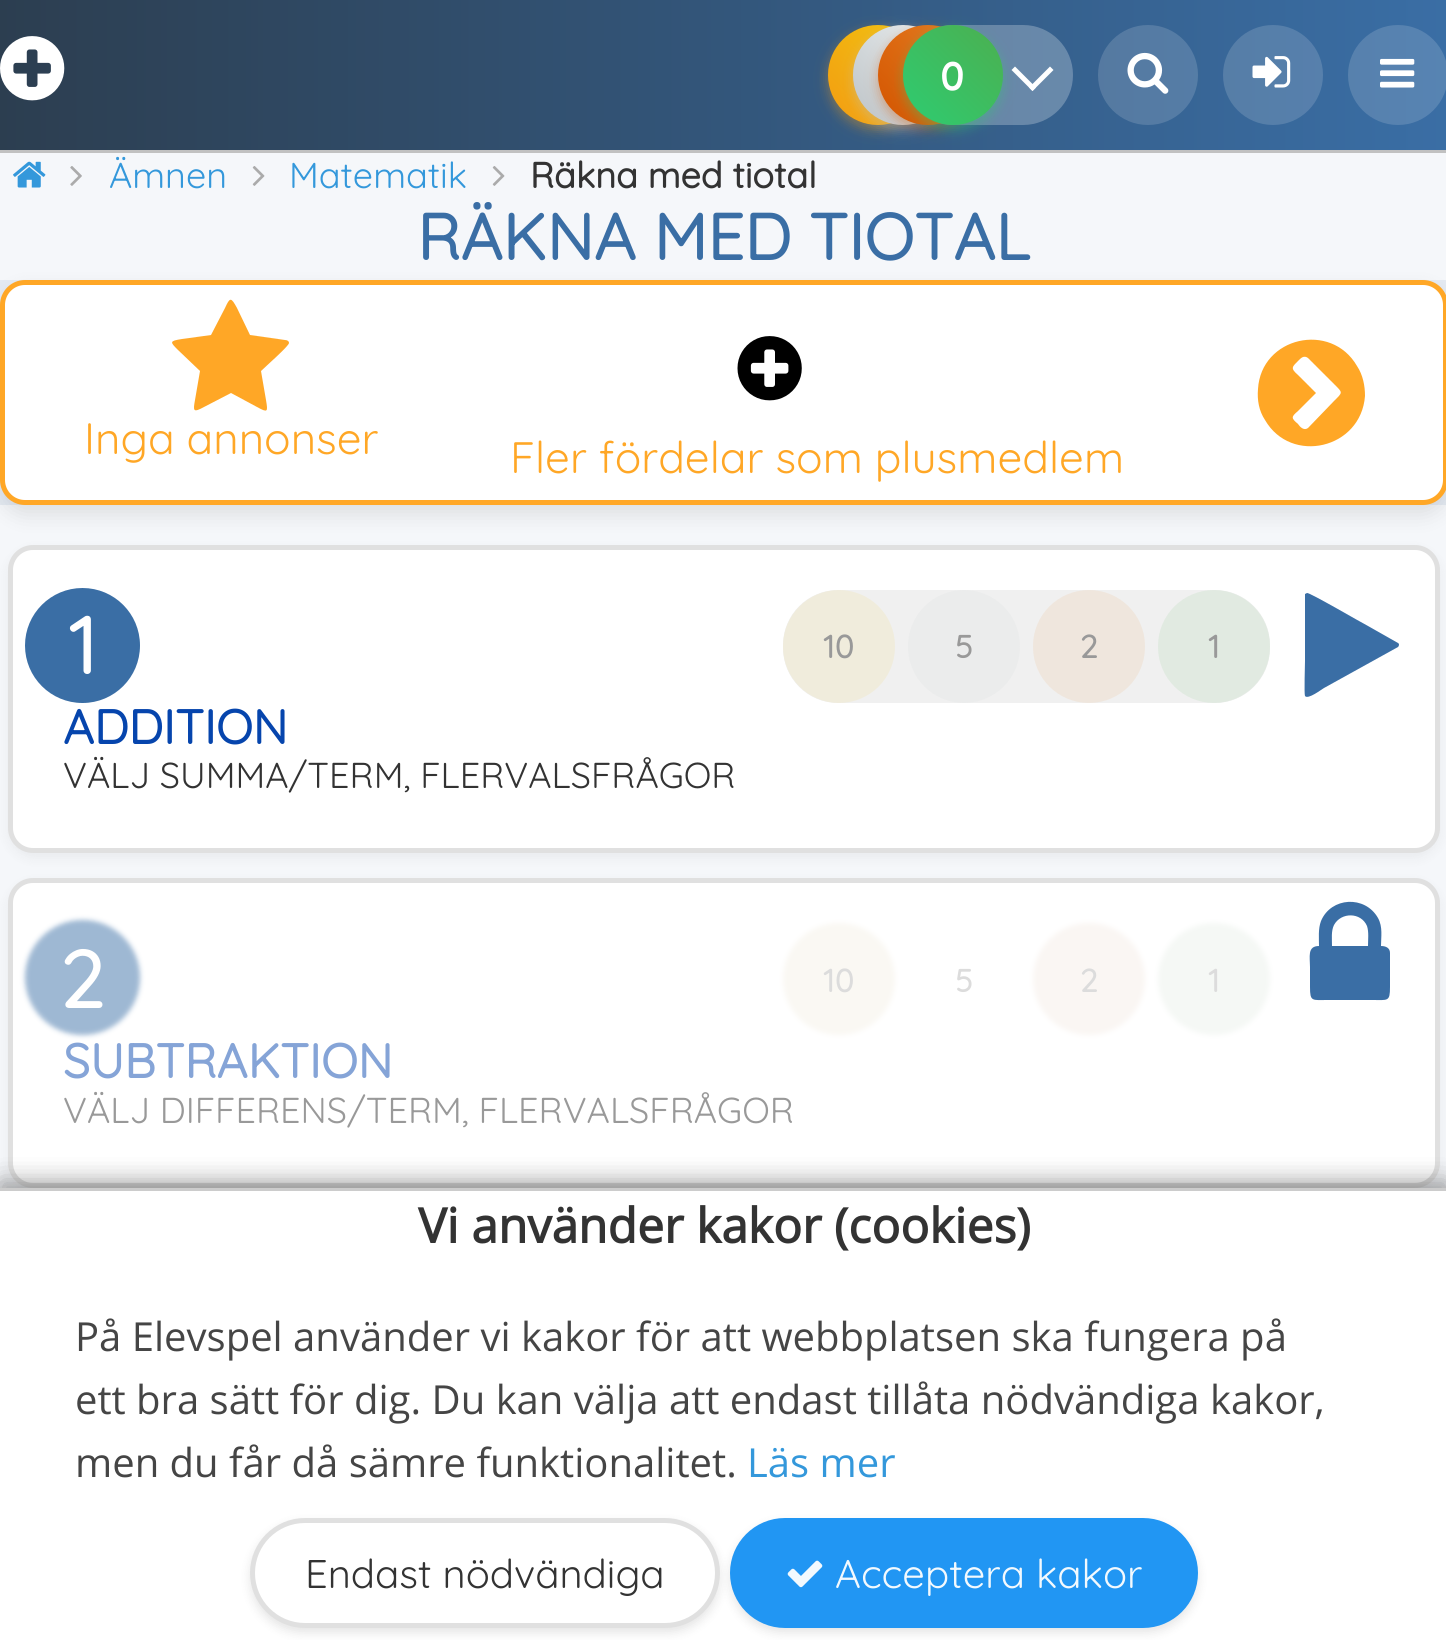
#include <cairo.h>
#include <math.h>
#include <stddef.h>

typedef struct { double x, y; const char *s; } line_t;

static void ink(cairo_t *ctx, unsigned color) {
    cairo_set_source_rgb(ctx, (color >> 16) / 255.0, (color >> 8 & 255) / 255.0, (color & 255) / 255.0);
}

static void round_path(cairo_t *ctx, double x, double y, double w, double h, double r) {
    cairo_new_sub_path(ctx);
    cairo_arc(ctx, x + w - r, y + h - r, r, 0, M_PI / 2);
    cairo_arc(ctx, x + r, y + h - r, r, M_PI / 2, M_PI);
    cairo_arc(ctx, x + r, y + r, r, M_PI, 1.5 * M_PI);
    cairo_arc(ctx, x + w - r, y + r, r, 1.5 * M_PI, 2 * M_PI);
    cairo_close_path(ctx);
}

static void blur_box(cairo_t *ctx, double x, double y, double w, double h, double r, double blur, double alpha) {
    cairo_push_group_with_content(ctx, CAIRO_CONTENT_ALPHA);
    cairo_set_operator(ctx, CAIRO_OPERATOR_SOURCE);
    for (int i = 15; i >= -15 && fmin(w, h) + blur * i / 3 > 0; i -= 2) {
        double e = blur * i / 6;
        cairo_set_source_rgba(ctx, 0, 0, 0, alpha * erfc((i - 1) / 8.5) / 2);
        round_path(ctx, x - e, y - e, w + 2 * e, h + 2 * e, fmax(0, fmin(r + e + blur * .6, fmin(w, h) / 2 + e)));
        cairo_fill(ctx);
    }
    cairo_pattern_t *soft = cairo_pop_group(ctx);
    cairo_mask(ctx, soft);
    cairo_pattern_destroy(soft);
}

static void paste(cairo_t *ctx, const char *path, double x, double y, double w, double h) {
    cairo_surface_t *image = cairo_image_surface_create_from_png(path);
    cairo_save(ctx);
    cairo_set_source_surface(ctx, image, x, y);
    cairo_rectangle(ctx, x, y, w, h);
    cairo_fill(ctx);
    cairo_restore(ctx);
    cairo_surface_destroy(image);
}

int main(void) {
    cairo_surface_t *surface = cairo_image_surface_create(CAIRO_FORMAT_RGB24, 1446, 1640);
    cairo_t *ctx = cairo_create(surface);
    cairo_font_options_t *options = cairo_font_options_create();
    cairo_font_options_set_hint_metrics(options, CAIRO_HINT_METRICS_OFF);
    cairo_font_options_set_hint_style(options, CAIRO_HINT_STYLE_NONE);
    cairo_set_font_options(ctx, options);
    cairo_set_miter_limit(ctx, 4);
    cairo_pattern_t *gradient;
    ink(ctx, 0xF5F7FA);
    cairo_paint(ctx);
    ink(ctx, 0xC1C1C1);
    cairo_rectangle(ctx, 0, 150, 1446, 3);
    cairo_fill(ctx);
    gradient = cairo_pattern_create_linear(0, 75, 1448, 75);
    cairo_pattern_add_color_stop_rgba(gradient, 0, 0.173, 0.243, 0.314, 1);
    cairo_pattern_add_color_stop_rgba(gradient, 1, 0.227, 0.431, 0.647, 1);
    cairo_set_source(ctx, gradient);
    cairo_pattern_destroy(gradient);
    cairo_rectangle(ctx, 0, 0, 1446, 150);
    cairo_fill(ctx);
    paste(ctx, "media/1.png", 0, 36, 65, 65);
    cairo_set_source_rgba(ctx, 1, 1, 1, 0.25);
    round_path(ctx, 903, 25, 170, 100, 50);
    cairo_fill(ctx);
    ink(ctx, 0xF39C12);
    blur_box(ctx, 828, 30, 100, 100, 50, 6, 0.4);
    gradient = cairo_pattern_create_linear(828, 125, 928, 25);
    cairo_pattern_add_color_stop_rgba(gradient, 0, 0.953, 0.612, 0.071, 1);
    cairo_pattern_add_color_stop_rgba(gradient, 1, 0.945, 0.769, 0.059, 1);
    cairo_set_source(ctx, gradient);
    cairo_pattern_destroy(gradient);
    cairo_arc(ctx, 878, 75, 50, 0, 2 * M_PI);
    cairo_fill(ctx);
    ink(ctx, 0xBDC3C7);
    blur_box(ctx, 853, 30, 100, 100, 50, 6, 0.4);
    gradient = cairo_pattern_create_linear(853, 125, 953, 25);
    cairo_pattern_add_color_stop_rgba(gradient, 0, 0.741, 0.765, 0.78, 1);
    cairo_pattern_add_color_stop_rgba(gradient, 1, 0.925, 0.941, 0.945, 1);
    cairo_set_source(ctx, gradient);
    cairo_pattern_destroy(gradient);
    cairo_arc(ctx, 903, 75, 50, 0, 2 * M_PI);
    cairo_fill(ctx);
    ink(ctx, 0xD35400);
    blur_box(ctx, 878, 30, 100, 100, 50, 6, 0.4);
    gradient = cairo_pattern_create_linear(878, 125, 978, 25);
    cairo_pattern_add_color_stop_rgba(gradient, 0, 0.827, 0.329, 0, 1);
    cairo_pattern_add_color_stop_rgba(gradient, 1, 0.902, 0.494, 0.133, 1);
    cairo_set_source(ctx, gradient);
    cairo_pattern_destroy(gradient);
    cairo_arc(ctx, 928, 75, 50, 0, 2 * M_PI);
    cairo_fill(ctx);
    ink(ctx, 0xFFFFFF);
    cairo_new_path(ctx);
    cairo_move_to(ctx, 1050, 66.5);
    cairo_line_to(ctx, 1053.5, 70);
    cairo_line_to(ctx, 1032.5, 91);
    cairo_line_to(ctx, 1029, 87.5);
    cairo_close_path(ctx);
    cairo_fill(ctx);
    cairo_new_path(ctx);
    cairo_move_to(ctx, 1015, 66.5);
    cairo_line_to(ctx, 1036, 87.5);
    cairo_line_to(ctx, 1032.5, 91);
    cairo_line_to(ctx, 1011.5, 70);
    cairo_close_path(ctx);
    cairo_fill(ctx);
    ink(ctx, 0x2ECC71);
    blur_box(ctx, 903, 30, 100, 100, 50, 6, 0.4);
    gradient = cairo_pattern_create_linear(903, 125, 1003, 25);
    cairo_pattern_add_color_stop_rgba(gradient, 0, 0.18, 0.8, 0.443, 1);
    cairo_pattern_add_color_stop_rgba(gradient, 1, 0.298, 0.686, 0.314, 1);
    cairo_set_source(ctx, gradient);
    cairo_pattern_destroy(gradient);
    cairo_arc(ctx, 953, 75, 50, 0, 2 * M_PI);
    cairo_fill(ctx);
    cairo_select_font_face(ctx, "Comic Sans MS", CAIRO_FONT_SLANT_NORMAL, CAIRO_FONT_WEIGHT_BOLD);
    cairo_set_font_size(ctx, 36);
    ink(ctx, 0xFFFFFF);
    cairo_move_to(ctx, 941, 90);
    cairo_show_text(ctx, "0");
    cairo_set_source_rgba(ctx, 1, 1, 1, 0.15);
    cairo_new_path(ctx);
    cairo_arc(ctx, 1148, 75, 50, 0, 2 * M_PI);
    cairo_fill(ctx);
    paste(ctx, "media/2.png", 1127, 52, 42, 42);
    cairo_arc(ctx, 1273, 75, 50, 0, 2 * M_PI);
    cairo_fill(ctx);
    paste(ctx, "media/3.png", 1252, 56, 39, 32);
    cairo_arc(ctx, 1398, 75, 50, 0, 2 * M_PI);
    cairo_fill(ctx);
    paste(ctx, "media/4.png", 1380, 58, 35, 30);
    paste(ctx, "media/5.png", 13, 161, 33, 27);
    paste(ctx, "media/6.png", 70, 166, 12, 20);
    cairo_select_font_face(ctx, "Quicksand Light", CAIRO_FONT_SLANT_NORMAL, CAIRO_FONT_WEIGHT_NORMAL);
    ink(ctx, 0x3498DB);
    cairo_move_to(ctx, 109, 188);
    cairo_show_text(ctx, "Ämnen");
    paste(ctx, "media/7.png", 252, 166, 13, 20);
    cairo_move_to(ctx, 289, 188);
    cairo_show_text(ctx, "Matematik");
    paste(ctx, "media/7.png", 492, 166, 13, 20);
    cairo_select_font_face(ctx, "Quicksand", CAIRO_FONT_SLANT_NORMAL, CAIRO_FONT_WEIGHT_BOLD);
    ink(ctx, 0x333333);
    cairo_move_to(ctx, 530, 188);
    cairo_show_text(ctx, "Räkna med tiotal");
    ink(ctx, 0xE4EAF2);
    cairo_rectangle(ctx, 0, 280, 1446, 225);
    cairo_fill(ctx);
    ink(ctx, 0x000000);
    blur_box(ctx, 0, 290, 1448, 225, 25, 10, 0.1);
    cairo_set_font_size(ctx, 65);
    ink(ctx, 0x3A6EA5);
    cairo_move_to(ctx, 417, 260);
    cairo_show_text(ctx, "RÄKNA MED TIOTAL");
    ink(ctx, 0xFFFFFF);
    round_path(ctx, 2.5, 282.5, 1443, 220, 22.5);
    cairo_fill_preserve(ctx);
    ink(ctx, 0xFFA726);
    cairo_set_line_width(ctx, 5);
    cairo_stroke(ctx);
    cairo_new_path(ctx);
    cairo_move_to(ctx, 289, 343);
    cairo_curve_to(ctx, 289, 346, 265, 367, 261, 371);
    cairo_line_to(ctx, 266, 400);
    cairo_curve_to(ctx, 268, 412, 268, 413, 257, 407);
    cairo_line_to(ctx, 231, 393);
    cairo_line_to(ctx, 204, 407);
    cairo_curve_to(ctx, 193, 413, 193, 411, 195, 400);
    cairo_line_to(ctx, 200, 371);
    cairo_line_to(ctx, 178, 350);
    cairo_curve_to(ctx, 170, 342, 169, 341, 182, 339);
    cairo_line_to(ctx, 211, 335);
    cairo_line_to(ctx, 225, 308);
    cairo_curve_to(ctx, 230, 297, 231, 297, 237, 308);
    cairo_line_to(ctx, 250, 335);
    cairo_line_to(ctx, 285, 340);
    cairo_curve_to(ctx, 287, 340, 289, 341, 289, 343);
    cairo_close_path(ctx);
    cairo_fill(ctx);
    cairo_select_font_face(ctx, "Quicksand Light", CAIRO_FONT_SLANT_NORMAL, CAIRO_FONT_WEIGHT_NORMAL);
    cairo_set_font_size(ctx, 44);
    cairo_move_to(ctx, 84, 454);
    cairo_show_text(ctx, "Inga annonser");
    paste(ctx, "media/8.png", 737, 336, 65, 65);
    cairo_move_to(ctx, 510, 473);
    cairo_show_text(ctx, "Fler fördelar som plusmedlem");
    cairo_new_path(ctx);
    cairo_move_to(ctx, 1308, 428);
    cairo_line_to(ctx, 1334, 401);
    cairo_curve_to(ctx, 1343, 392, 1343, 393, 1334, 384);
    cairo_line_to(ctx, 1308, 358);
    cairo_curve_to(ctx, 1304, 355, 1301, 358, 1299, 360);
    cairo_curve_to(ctx, 1292, 367, 1290, 368, 1298, 375);
    cairo_line_to(ctx, 1316, 393);
    cairo_line_to(ctx, 1298, 411);
    cairo_curve_to(ctx, 1291, 417, 1291, 418, 1298, 424);
    cairo_curve_to(ctx, 1300, 427, 1304, 431, 1308, 428);
    cairo_close_path(ctx);
    cairo_move_to(ctx, 1357, 366);
    cairo_curve_to(ctx, 1363, 375, 1365, 386, 1365, 396);
    cairo_curve_to(ctx, 1361, 449, 1291, 465, 1265, 420);
    cairo_curve_to(ctx, 1259, 411, 1257, 400, 1258, 389);
    cairo_curve_to(ctx, 1261, 337, 1331, 321, 1357, 366);
    cairo_close_path(ctx);
    cairo_fill(ctx);
    ink(ctx, 0x000000);
    blur_box(ctx, 8, 550, 1432, 308, 25, 6, 0.05);
    ink(ctx, 0xFFFFFF);
    round_path(ctx, 10.5, 547.5, 1427, 303, 22.5);
    cairo_fill_preserve(ctx);
    ink(ctx, 0xE0E0E0);
    cairo_stroke(ctx);
    ink(ctx, 0x3A6EA5);
    cairo_arc(ctx, 82.5, 645.5, 57.5, 0, 2 * M_PI);
    cairo_fill(ctx);
    cairo_select_font_face(ctx, "Quicksand", CAIRO_FONT_SLANT_NORMAL, CAIRO_FONT_WEIGHT_BOLD);
    cairo_set_font_size(ctx, 80);
    ink(ctx, 0xFFFFFF);
    cairo_move_to(ctx, 68, 674);
    cairo_show_text(ctx, "1");
    ink(ctx, 0xF0F0F0);
    round_path(ctx, 783, 590, 487, 113, 55);
    cairo_fill(ctx);
    ink(ctx, 0xF0ECDC);
    round_path(ctx, 783, 590, 112, 113, 56);
    cairo_fill(ctx);
    cairo_set_font_size(ctx, 32);
    ink(ctx, 0x999999);
    cairo_move_to(ctx, 823, 658);
    cairo_show_text(ctx, "10");
    ink(ctx, 0xEBECEC);
    round_path(ctx, 908, 590, 112, 113, 56);
    cairo_fill(ctx);
    ink(ctx, 0x999999);
    cairo_move_to(ctx, 955, 658);
    cairo_show_text(ctx, "5");
    ink(ctx, 0xEFE6DD);
    round_path(ctx, 1033, 590, 112, 113, 56);
    cairo_fill(ctx);
    ink(ctx, 0x999999);
    cairo_move_to(ctx, 1080, 658);
    cairo_show_text(ctx, "2");
    ink(ctx, 0xE1EAE1);
    round_path(ctx, 1158, 590, 112, 113, 56);
    cairo_fill(ctx);
    ink(ctx, 0x999999);
    cairo_move_to(ctx, 1208, 658);
    cairo_show_text(ctx, "1");
    ink(ctx, 0x3A6EA5);
    cairo_new_path(ctx);
    cairo_move_to(ctx, 1398, 647);
    cairo_line_to(ctx, 1324, 688);
    cairo_curve_to(ctx, 1322, 689, 1308, 700, 1305, 696);
    cairo_curve_to(ctx, 1304, 694, 1305, 664, 1305, 661);
    cairo_line_to(ctx, 1305, 594);
    cairo_line_to(ctx, 1307, 593);
    cairo_curve_to(ctx, 1309, 592, 1362, 623, 1368, 626);
    cairo_line_to(ctx, 1398, 643);
    cairo_line_to(ctx, 1399, 644);
    cairo_curve_to(ctx, 1399, 645, 1399, 646, 1398, 647);
    cairo_close_path(ctx);
    cairo_fill(ctx);
    cairo_set_font_size(ctx, 48);
    ink(ctx, 0x0645AD);
    cairo_move_to(ctx, 63, 744);
    cairo_show_text(ctx, "ADDITION");
    cairo_select_font_face(ctx, "Quicksand Light", CAIRO_FONT_SLANT_NORMAL, CAIRO_FONT_WEIGHT_NORMAL);
    cairo_set_font_size(ctx, 36);
    ink(ctx, 0x333333);
    cairo_move_to(ctx, 63, 788);
    cairo_show_text(ctx, "VÄLJ SUMMA/TERM, FLERVALSFRÅGOR");
    ink(ctx, 0x000000);
    blur_box(ctx, 8, 883, 1432, 310, 25, 6, 0.05);
    ink(ctx, 0xFFFFFF);
    round_path(ctx, 10.5, 880.5, 1427, 305, 22.5);
    cairo_fill_preserve(ctx);
    ink(ctx, 0xE0E0E0);
    cairo_stroke(ctx);
    ink(ctx, 0x9EB8D3);
    blur_box(ctx, 25, 920, 115, 115, 57.5, 2.5, 1);
    cairo_select_font_face(ctx, "Quicksand", CAIRO_FONT_SLANT_NORMAL, CAIRO_FONT_WEIGHT_BOLD);
    cairo_set_font_size(ctx, 80);
    ink(ctx, 0xFFFFFF);
    cairo_move_to(ctx, 60, 1008);
    cairo_show_text(ctx, "2");
    ink(ctx, 0xFAF8F3);
    blur_box(ctx, 783, 923, 112, 112, 56, 2.5, 1);
    cairo_set_font_size(ctx, 32);
    ink(ctx, 0xDCDCDC);
    cairo_move_to(ctx, 823, 992);
    cairo_show_text(ctx, "10");
    cairo_move_to(ctx, 955, 992);
    cairo_show_text(ctx, "5");
    ink(ctx, 0xFAF6F3);
    blur_box(ctx, 1033, 923, 112, 112, 56, 2.5, 1);
    ink(ctx, 0xDCDCDC);
    cairo_move_to(ctx, 1080, 992);
    cairo_show_text(ctx, "2");
    ink(ctx, 0xF5F8F5);
    blur_box(ctx, 1158, 923, 112, 112, 56, 2.5, 1);
    ink(ctx, 0xDCDCDC);
    cairo_move_to(ctx, 1208, 992);
    cairo_show_text(ctx, "1");
    ink(ctx, 0x3A6EA5);
    cairo_new_path(ctx);
    cairo_move_to(ctx, 1332, 946);
    cairo_line_to(ctx, 1368, 946);
    cairo_curve_to(ctx, 1368, 940, 1369, 932, 1367, 926);
    cairo_curve_to(ctx, 1361, 912, 1341, 912, 1334, 925);
    cairo_curve_to(ctx, 1331, 931, 1332, 939, 1332, 946);
    cairo_close_path(ctx);
    cairo_move_to(ctx, 1390, 953);
    cairo_line_to(ctx, 1390, 987);
    cairo_curve_to(ctx, 1390, 1002, 1388, 1000, 1372, 1000);
    cairo_line_to(ctx, 1328, 1000);
    cairo_curve_to(ctx, 1312, 1000, 1310, 1002, 1310, 987);
    cairo_line_to(ctx, 1310, 967);
    cairo_curve_to(ctx, 1310, 957, 1307, 946, 1319, 946);
    cairo_curve_to(ctx, 1319, 938, 1318, 929, 1321, 921);
    cairo_curve_to(ctx, 1331, 897, 1365, 895, 1378, 918);
    cairo_curve_to(ctx, 1383, 927, 1381, 937, 1381, 946);
    cairo_curve_to(ctx, 1386, 946, 1390, 948, 1390, 953);
    cairo_close_path(ctx);
    cairo_fill(ctx);
    cairo_set_font_size(ctx, 48);
    ink(ctx, 0x85A4D7);
    cairo_move_to(ctx, 63, 1078);
    cairo_show_text(ctx, "SUBTRAKTION");
    cairo_select_font_face(ctx, "Quicksand Light", CAIRO_FONT_SLANT_NORMAL, CAIRO_FONT_WEIGHT_NORMAL);
    cairo_set_font_size(ctx, 36);
    ink(ctx, 0x999999);
    cairo_move_to(ctx, 63, 1123);
    cairo_show_text(ctx, "VÄLJ DIFFERENS/TERM, FLERVALSFRÅGOR");
    ink(ctx, 0x000000);
    blur_box(ctx, 0, 1195, 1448, 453, 0, 12.5, 0.15);
    blur_box(ctx, 0, 1195, 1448, 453, 0, 12.5, 0.15);
    blur_box(ctx, 0, 1180, 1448, 453, 0, 12.5, 0.15);
    blur_box(ctx, 0, 1180, 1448, 453, 0, 12.5, 0.15);
    ink(ctx, 0xFFFFFF);
    cairo_rectangle(ctx, 0, 1191, 1446, 449);
    cairo_fill(ctx);
    ink(ctx, 0xCCCCCC);
    cairo_rectangle(ctx, 0, 1188, 1446, 3);
    cairo_fill(ctx);
    cairo_select_font_face(ctx, "Open Sans", CAIRO_FONT_SLANT_NORMAL, CAIRO_FONT_WEIGHT_BOLD);
    cairo_set_font_size(ctx, 48);
    ink(ctx, 0x333333);
    cairo_move_to(ctx, 418, 1243);
    cairo_show_text(ctx, "Vi använder kakor (cookies)");
    cairo_select_font_face(ctx, "Open Sans", CAIRO_FONT_SLANT_NORMAL, CAIRO_FONT_WEIGHT_NORMAL);
    cairo_set_font_size(ctx, 40);
    ink(ctx, 0x454545);
    {
        static const line_t items[] = {
            {75, 1351, "På Elevspel använder vi kakor för att webbplatsen ska fungera på"},
            {75, 1414, "ett bra sätt för dig. Du kan välja att endast tillåta nödvändiga kakor,"},
            {75, 1477, "men du får då sämre funktionalitet."},
        };
        for (size_t i = 0; i < sizeof items / sizeof *items; i++) {
            cairo_move_to(ctx, items[i].x, items[i].y);
            cairo_show_text(ctx, items[i].s);
        }
    }
    ink(ctx, 0x3498DB);
    cairo_move_to(ctx, 747, 1477);
    cairo_show_text(ctx, "Läs mer");
    ink(ctx, 0x000000);
    blur_box(ctx, 250, 1523, 470, 110, 55, 5, 0.1);
    ink(ctx, 0xFFFFFF);
    round_path(ctx, 252.5, 1520.5, 465, 105, 52.5);
    cairo_fill_preserve(ctx);
    ink(ctx, 0xE0E0E0);
    cairo_stroke(ctx);
    cairo_select_font_face(ctx, "Quicksand Light", CAIRO_FONT_SLANT_NORMAL, CAIRO_FONT_WEIGHT_NORMAL);
    ink(ctx, 0x333333);
    cairo_move_to(ctx, 305, 1588);
    cairo_show_text(ctx, "Endast nödvändiga");
    ink(ctx, 0x000000);
    blur_box(ctx, 730, 1523, 468, 110, 55, 5, 0.1);
    ink(ctx, 0x2196F3);
    round_path(ctx, 732.5, 1520.5, 463, 105, 52.5);
    cairo_fill_preserve(ctx);
    cairo_stroke(ctx);
    paste(ctx, "media/9.png", 787, 1560, 36, 28);
    ink(ctx, 0xF2F9FE);
    cairo_move_to(ctx, 835, 1588);
    cairo_show_text(ctx, "Acceptera kakor");
    cairo_surface_write_to_png(surface, "image.png");
    cairo_font_options_destroy(options);
    cairo_destroy(ctx);
    cairo_surface_destroy(surface);
    return 0;
}
